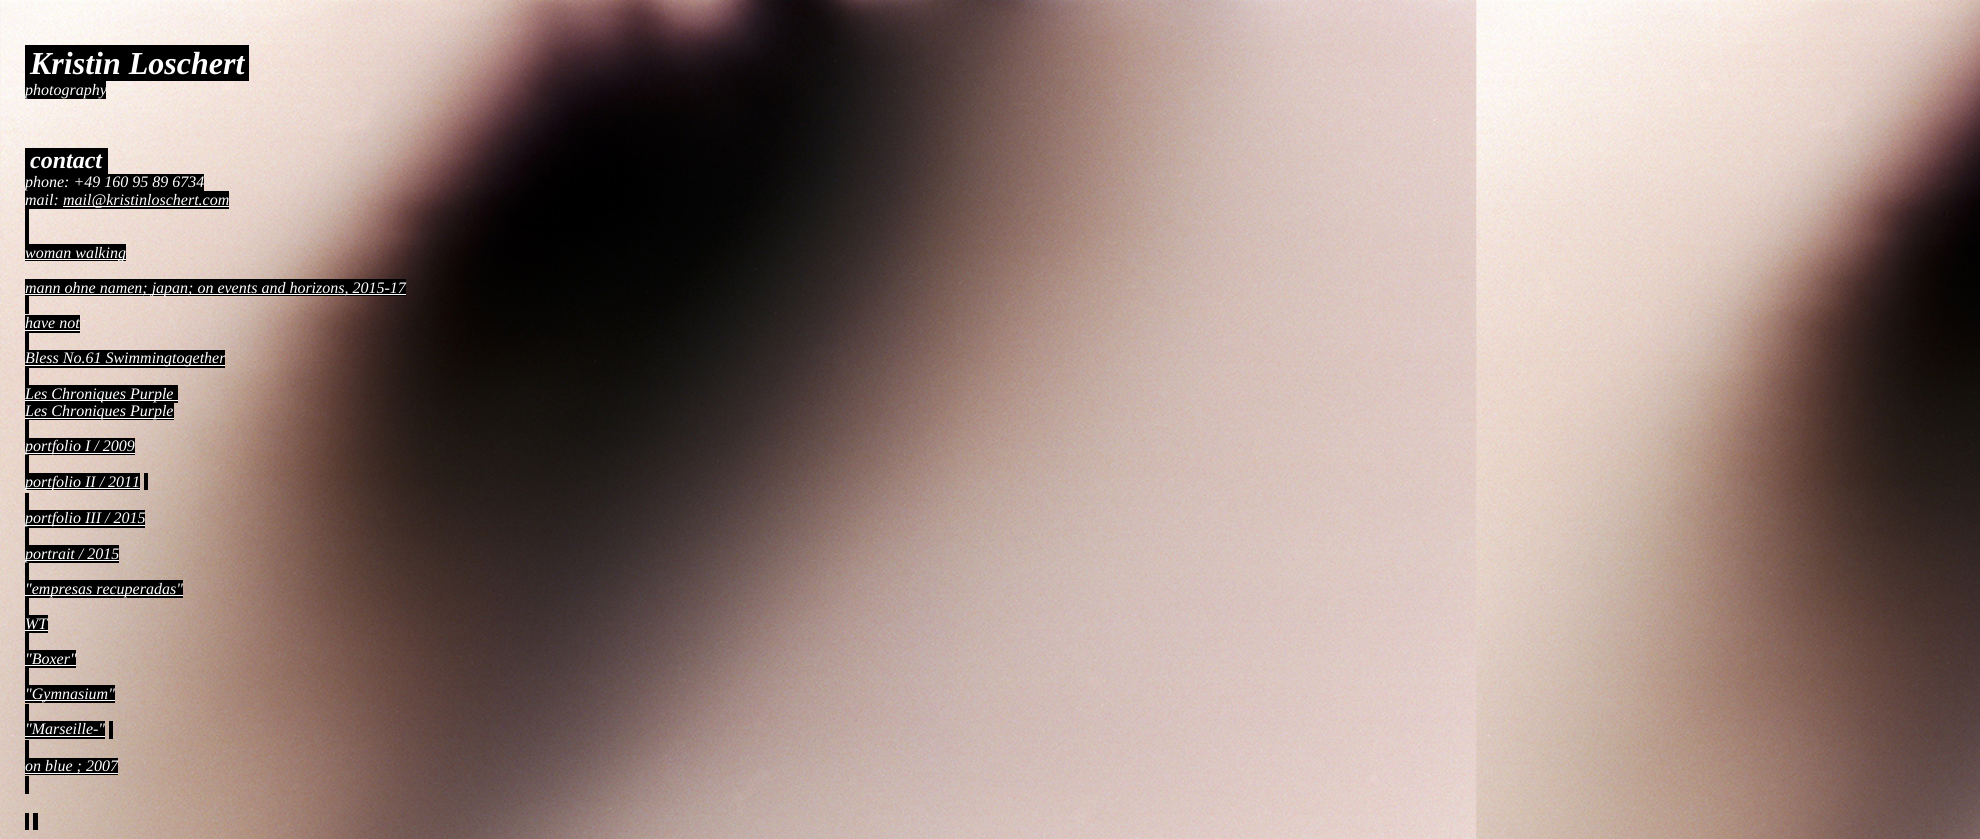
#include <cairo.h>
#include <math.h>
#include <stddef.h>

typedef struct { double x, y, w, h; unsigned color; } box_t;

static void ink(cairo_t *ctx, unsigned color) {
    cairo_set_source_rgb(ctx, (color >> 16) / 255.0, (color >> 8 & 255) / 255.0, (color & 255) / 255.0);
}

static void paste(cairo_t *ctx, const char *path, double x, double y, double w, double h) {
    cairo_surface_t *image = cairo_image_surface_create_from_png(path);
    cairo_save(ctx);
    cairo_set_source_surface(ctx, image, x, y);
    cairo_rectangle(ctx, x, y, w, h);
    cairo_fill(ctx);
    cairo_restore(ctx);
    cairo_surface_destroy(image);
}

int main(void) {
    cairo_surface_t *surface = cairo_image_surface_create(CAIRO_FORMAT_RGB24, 1980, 839);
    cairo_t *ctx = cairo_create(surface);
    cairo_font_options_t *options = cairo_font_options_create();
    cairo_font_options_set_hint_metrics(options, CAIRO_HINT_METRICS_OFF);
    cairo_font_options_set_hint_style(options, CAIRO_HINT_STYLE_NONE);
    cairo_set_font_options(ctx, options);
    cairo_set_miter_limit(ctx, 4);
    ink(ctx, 0xFFFFFF);
    cairo_paint(ctx);
    paste(ctx, "media/1.png", 0, 0, 1980, 839);
    ink(ctx, 0x000000);
    cairo_rectangle(ctx, 25, 45, 224, 36);
    cairo_fill(ctx);
    cairo_select_font_face(ctx, "Liberation Serif", CAIRO_FONT_SLANT_ITALIC, CAIRO_FONT_WEIGHT_BOLD);
    cairo_set_font_size(ctx, 32);
    ink(ctx, 0xFFFFFF);
    cairo_move_to(ctx, 30, 74);
    cairo_show_text(ctx, "Kristin Loschert");
    ink(ctx, 0x000000);
    cairo_rectangle(ctx, 25, 81, 81, 18);
    cairo_fill(ctx);
    cairo_select_font_face(ctx, "Liberation Serif", CAIRO_FONT_SLANT_ITALIC, CAIRO_FONT_WEIGHT_NORMAL);
    cairo_set_font_size(ctx, 16);
    ink(ctx, 0xFFFFFF);
    cairo_move_to(ctx, 25, 95);
    cairo_show_text(ctx, "photography");
    ink(ctx, 0x000000);
    cairo_rectangle(ctx, 25, 148, 83, 26);
    cairo_fill(ctx);
    cairo_select_font_face(ctx, "Liberation Serif", CAIRO_FONT_SLANT_ITALIC, CAIRO_FONT_WEIGHT_BOLD);
    cairo_set_font_size(ctx, 24);
    ink(ctx, 0xFFFFFF);
    cairo_move_to(ctx, 30, 168);
    cairo_show_text(ctx, "contact");
    ink(ctx, 0x000000);
    cairo_rectangle(ctx, 25, 174, 179, 17);
    cairo_fill(ctx);
    cairo_select_font_face(ctx, "Liberation Serif", CAIRO_FONT_SLANT_ITALIC, CAIRO_FONT_WEIGHT_NORMAL);
    cairo_set_font_size(ctx, 16);
    ink(ctx, 0xFFFFFF);
    cairo_move_to(ctx, 25, 187);
    cairo_show_text(ctx, "phone: +49 160 95 89 6734");
    ink(ctx, 0x000000);
    cairo_rectangle(ctx, 25, 191, 204, 18);
    cairo_fill(ctx);
    ink(ctx, 0xFFFFFF);
    cairo_move_to(ctx, 25, 205);
    cairo_show_text(ctx, "mail:");
    cairo_rectangle(ctx, 63, 206, 166, 1);
    cairo_fill(ctx);
    cairo_move_to(ctx, 63, 205);
    cairo_show_text(ctx, "mail@kristinloschert.com");
    {
        static const box_t items[] = {
            {25, 209, 4, 35, 0x000000},
            {25, 244, 101, 17, 0x000000},
            {25, 259, 101, 1, 0xFFFFFF},
        };
        for (size_t i = 0; i < sizeof items / sizeof *items; i++) {
            ink(ctx, items[i].color);
            cairo_rectangle(ctx, items[i].x, items[i].y, items[i].w, items[i].h);
            cairo_fill(ctx);
        }
    }
    cairo_move_to(ctx, 25, 258);
    cairo_show_text(ctx, "woman walking");
    ink(ctx, 0x000000);
    cairo_rectangle(ctx, 25, 279, 381, 17);
    cairo_fill(ctx);
    ink(ctx, 0xFFFFFF);
    cairo_rectangle(ctx, 25, 294, 381, 1);
    cairo_fill(ctx);
    cairo_move_to(ctx, 25, 293);
    cairo_show_text(ctx, "mann ohne namen; japan; on events and horizons, 2015-17");
    ink(ctx, 0x000000);
    cairo_rectangle(ctx, 25, 296, 4, 18);
    cairo_fill(ctx);
    cairo_rectangle(ctx, 25, 315, 55, 18);
    cairo_fill(ctx);
    ink(ctx, 0xFFFFFF);
    cairo_move_to(ctx, 25, 328);
    cairo_show_text(ctx, "have not");
    {
        static const box_t items[] = {
            {25, 330, 55, 1, 0xFFFFFF},
            {25, 333, 4, 17, 0x000000},
            {25, 350, 200, 18, 0x000000},
            {25, 365, 200, 1, 0xFFFFFF},
        };
        for (size_t i = 0; i < sizeof items / sizeof *items; i++) {
            ink(ctx, items[i].color);
            cairo_rectangle(ctx, items[i].x, items[i].y, items[i].w, items[i].h);
            cairo_fill(ctx);
        }
    }
    cairo_move_to(ctx, 25, 363);
    cairo_show_text(ctx, "Bless No.61 Swimmingtogether");
    {
        static const box_t items[] = {
            {25, 368, 4, 17, 0x000000},
            {25, 385, 153, 18, 0x000000},
            {25, 400, 153, 1, 0xFFFFFF},
        };
        for (size_t i = 0; i < sizeof items / sizeof *items; i++) {
            ink(ctx, items[i].color);
            cairo_rectangle(ctx, items[i].x, items[i].y, items[i].w, items[i].h);
            cairo_fill(ctx);
        }
    }
    cairo_move_to(ctx, 25, 399);
    cairo_show_text(ctx, "Les Chroniques Purple");
    ink(ctx, 0x000000);
    cairo_rectangle(ctx, 25, 403, 149, 17);
    cairo_fill(ctx);
    ink(ctx, 0xFFFFFF);
    cairo_rectangle(ctx, 25, 418, 149, 1);
    cairo_fill(ctx);
    cairo_move_to(ctx, 25, 416);
    cairo_show_text(ctx, "Les Chroniques Purple");
    {
        static const box_t items[] = {
            {25, 420, 4, 18, 0x000000},
            {25, 438, 110, 17, 0x000000},
            {25, 453, 110, 1, 0xFFFFFF},
        };
        for (size_t i = 0; i < sizeof items / sizeof *items; i++) {
            ink(ctx, items[i].color);
            cairo_rectangle(ctx, items[i].x, items[i].y, items[i].w, items[i].h);
            cairo_fill(ctx);
        }
    }
    cairo_move_to(ctx, 25, 451);
    cairo_show_text(ctx, "portfolio I / 2009");
    {
        static const box_t items[] = {
            {25, 455, 4, 18, 0x000000},
            {25, 473, 115, 17, 0x000000},
            {25, 488, 115, 1, 0xFFFFFF},
        };
        for (size_t i = 0; i < sizeof items / sizeof *items; i++) {
            ink(ctx, items[i].color);
            cairo_rectangle(ctx, items[i].x, items[i].y, items[i].w, items[i].h);
            cairo_fill(ctx);
        }
    }
    cairo_move_to(ctx, 25, 487);
    cairo_show_text(ctx, "portfolio II / 2011");
    {
        static const box_t items[] = {
            {144, 473, 4, 17, 0x000000},
            {25, 493, 4, 17, 0x000000},
            {25, 510, 120, 18, 0x000000},
            {25, 525, 120, 1, 0xFFFFFF},
        };
        for (size_t i = 0; i < sizeof items / sizeof *items; i++) {
            ink(ctx, items[i].color);
            cairo_rectangle(ctx, items[i].x, items[i].y, items[i].w, items[i].h);
            cairo_fill(ctx);
        }
    }
    cairo_move_to(ctx, 25, 523);
    cairo_show_text(ctx, "portfolio III / 2015");
    {
        static const box_t items[] = {
            {25, 528, 4, 17, 0x000000},
            {25, 545, 94, 18, 0x000000},
            {25, 560, 94, 1, 0xFFFFFF},
        };
        for (size_t i = 0; i < sizeof items / sizeof *items; i++) {
            ink(ctx, items[i].color);
            cairo_rectangle(ctx, items[i].x, items[i].y, items[i].w, items[i].h);
            cairo_fill(ctx);
        }
    }
    cairo_move_to(ctx, 25, 559);
    cairo_show_text(ctx, "portrait / 2015");
    {
        static const box_t items[] = {
            {25, 563, 4, 17, 0x000000},
            {25, 580, 158, 18, 0x000000},
            {25, 595, 158, 1, 0xFFFFFF},
        };
        for (size_t i = 0; i < sizeof items / sizeof *items; i++) {
            ink(ctx, items[i].color);
            cairo_rectangle(ctx, items[i].x, items[i].y, items[i].w, items[i].h);
            cairo_fill(ctx);
        }
    }
    cairo_move_to(ctx, 25, 594);
    cairo_show_text(ctx, "\"empresas recuperadas\"");
    ink(ctx, 0x000000);
    cairo_rectangle(ctx, 25, 598, 4, 17);
    cairo_fill(ctx);
    cairo_rectangle(ctx, 25, 615, 23, 18);
    cairo_fill(ctx);
    ink(ctx, 0xFFFFFF);
    cairo_move_to(ctx, 25, 629);
    cairo_show_text(ctx, "WT");
    {
        static const box_t items[] = {
            {25, 630, 23, 1, 0xFFFFFF},
            {25, 633, 4, 17, 0x000000},
            {25, 650, 51, 18, 0x000000},
        };
        for (size_t i = 0; i < sizeof items / sizeof *items; i++) {
            ink(ctx, items[i].color);
            cairo_rectangle(ctx, items[i].x, items[i].y, items[i].w, items[i].h);
            cairo_fill(ctx);
        }
    }
    ink(ctx, 0xFFFFFF);
    cairo_move_to(ctx, 25, 664);
    cairo_show_text(ctx, "\"Boxer\"");
    {
        static const box_t items[] = {
            {25, 665, 51, 1, 0xFFFFFF},
            {25, 668, 4, 17, 0x000000},
            {25, 685, 90, 18, 0x000000},
            {25, 700, 90, 1, 0xFFFFFF},
        };
        for (size_t i = 0; i < sizeof items / sizeof *items; i++) {
            ink(ctx, items[i].color);
            cairo_rectangle(ctx, items[i].x, items[i].y, items[i].w, items[i].h);
            cairo_fill(ctx);
        }
    }
    cairo_move_to(ctx, 25, 699);
    cairo_show_text(ctx, "\"Gymnasium\"");
    ink(ctx, 0x000000);
    cairo_rectangle(ctx, 25, 704, 4, 17);
    cairo_fill(ctx);
    cairo_rectangle(ctx, 25, 721, 80, 18);
    cairo_fill(ctx);
    ink(ctx, 0xFFFFFF);
    cairo_move_to(ctx, 25, 734);
    cairo_show_text(ctx, "\"Marseille-\"");
    {
        static const box_t items[] = {
            {25, 736, 80, 1, 0xFFFFFF},
            {109, 721, 4, 18, 0x000000},
            {25, 740, 4, 18, 0x000000},
            {25, 758, 93, 17, 0x000000},
            {25, 773, 93, 1, 0xFFFFFF},
        };
        for (size_t i = 0; i < sizeof items / sizeof *items; i++) {
            ink(ctx, items[i].color);
            cairo_rectangle(ctx, items[i].x, items[i].y, items[i].w, items[i].h);
            cairo_fill(ctx);
        }
    }
    cairo_move_to(ctx, 25, 771);
    cairo_show_text(ctx, "on blue ; 2007");
    {
        static const box_t items[] = {
            {25, 776, 4, 18, 0x000000},
            {25, 813, 4, 17, 0x000000},
            {33, 813, 5, 17, 0x000000},
        };
        for (size_t i = 0; i < sizeof items / sizeof *items; i++) {
            ink(ctx, items[i].color);
            cairo_rectangle(ctx, items[i].x, items[i].y, items[i].w, items[i].h);
            cairo_fill(ctx);
        }
    }
    cairo_surface_write_to_png(surface, "image.png");
    cairo_font_options_destroy(options);
    cairo_destroy(ctx);
    cairo_surface_destroy(surface);
    return 0;
}
